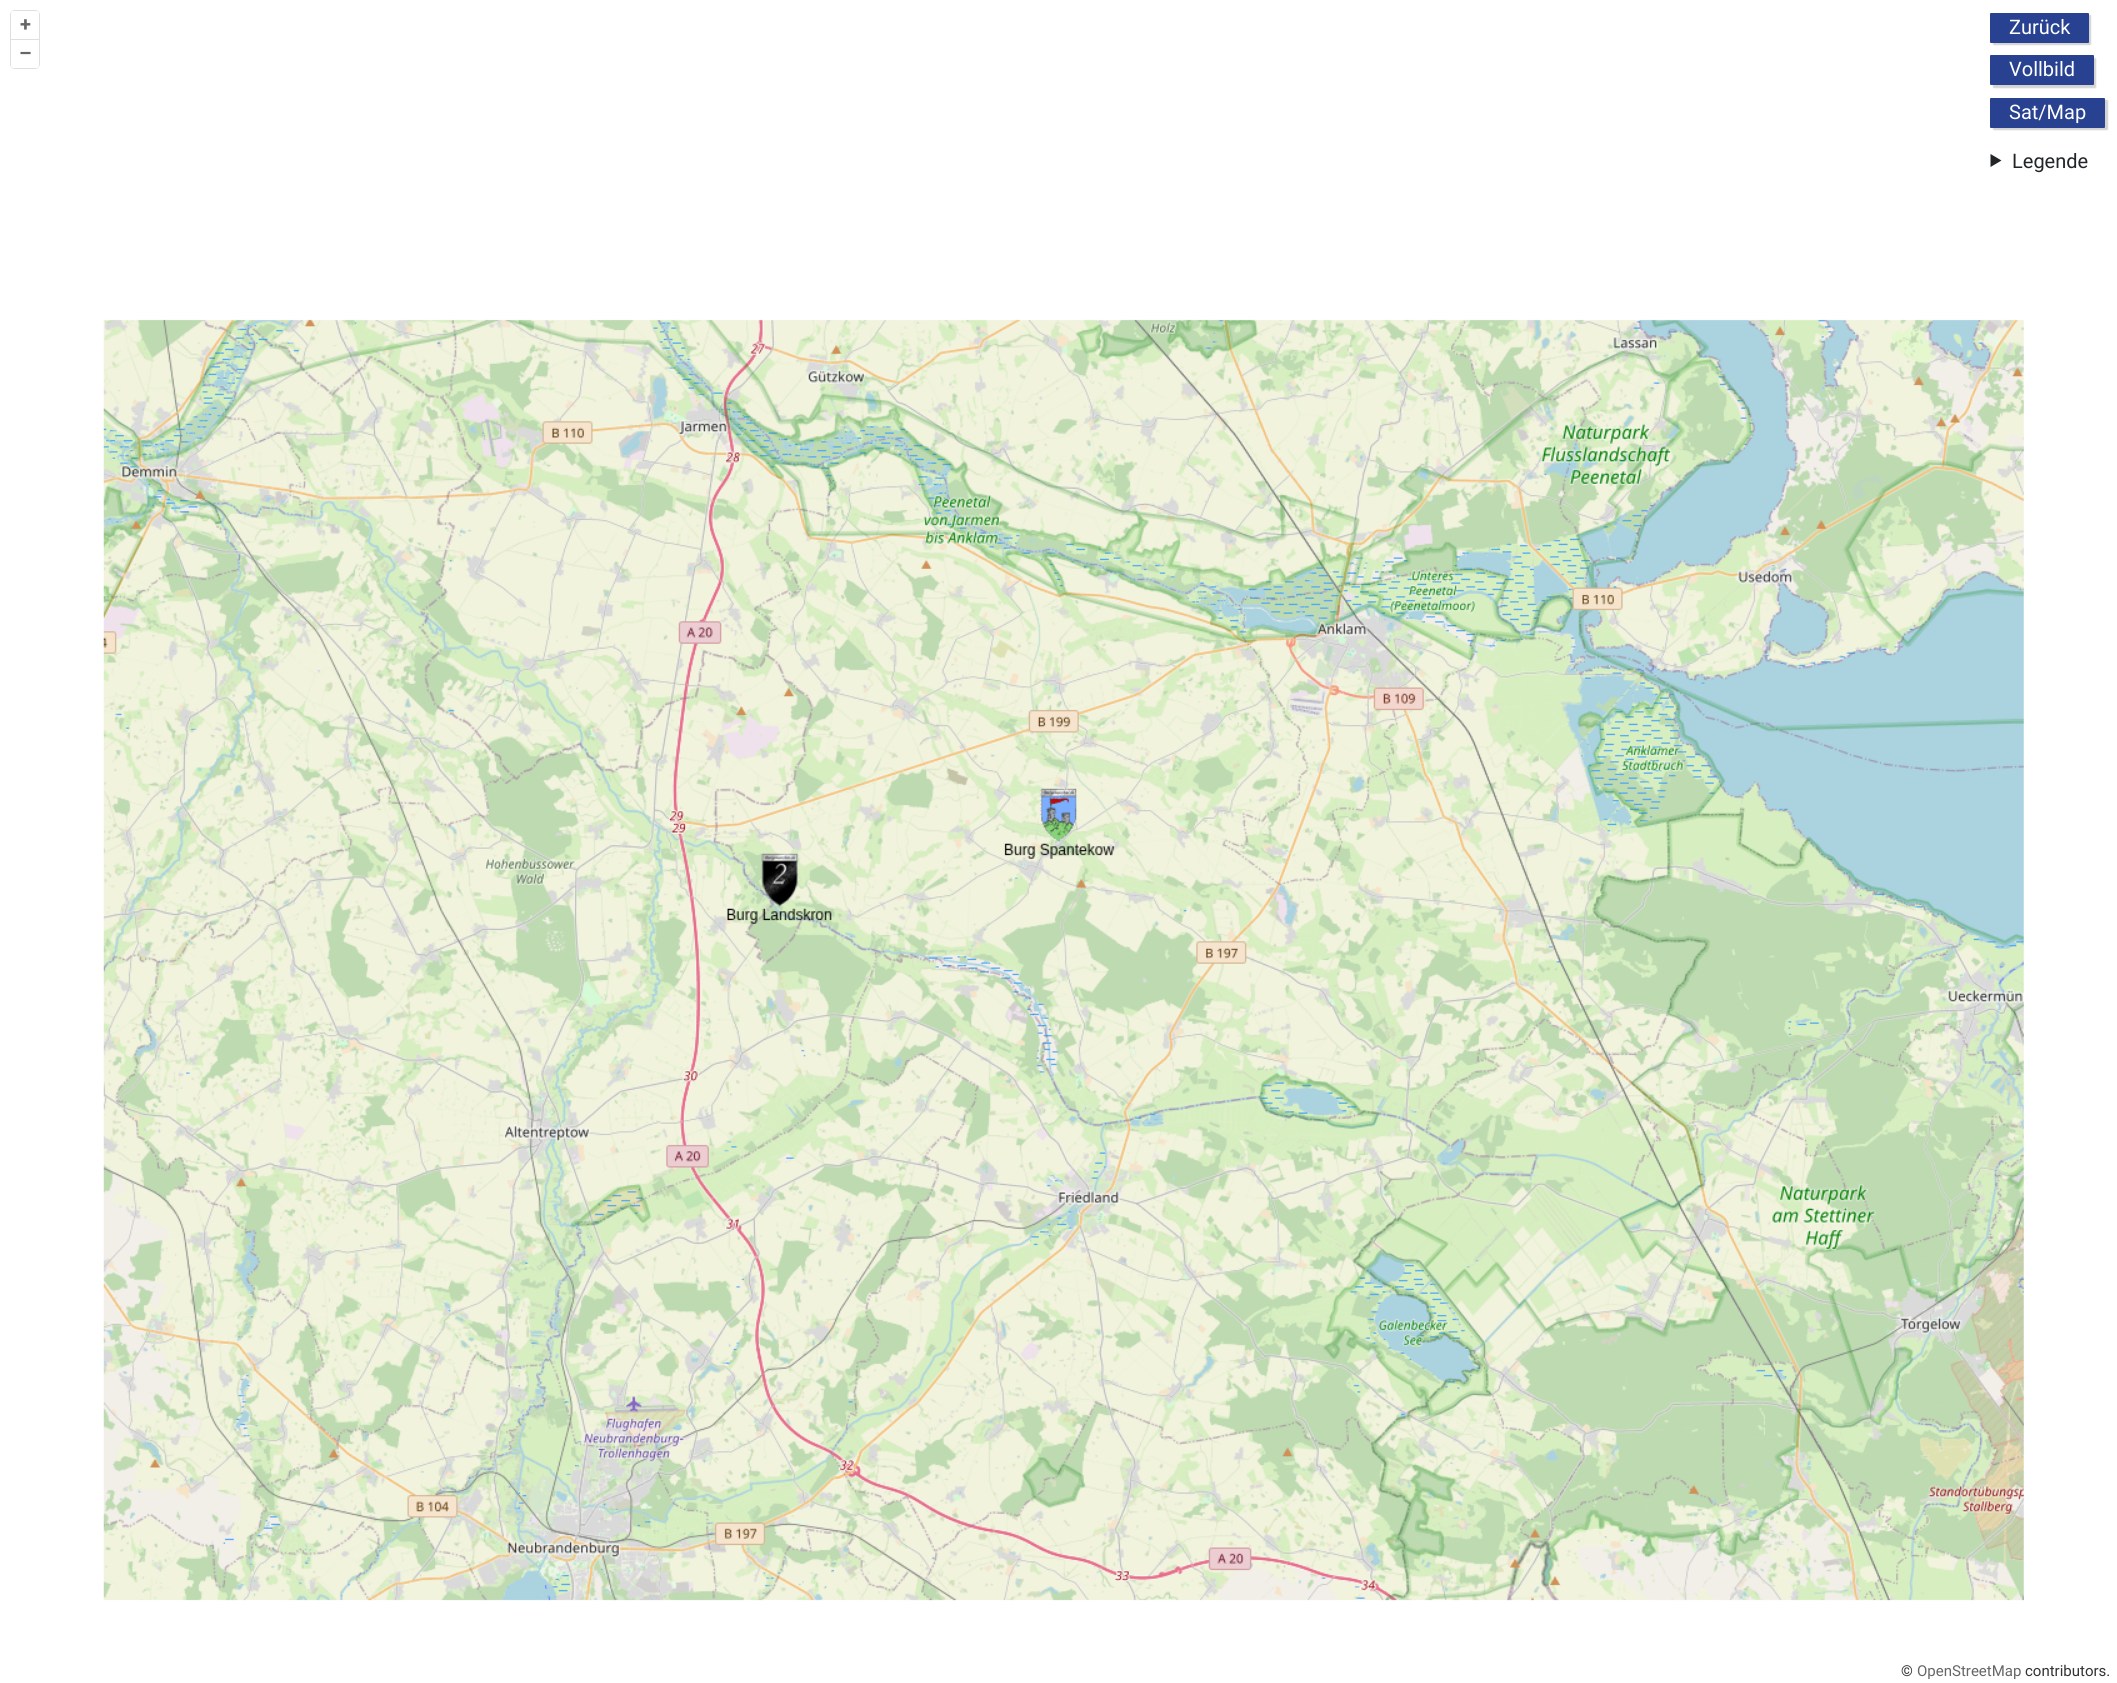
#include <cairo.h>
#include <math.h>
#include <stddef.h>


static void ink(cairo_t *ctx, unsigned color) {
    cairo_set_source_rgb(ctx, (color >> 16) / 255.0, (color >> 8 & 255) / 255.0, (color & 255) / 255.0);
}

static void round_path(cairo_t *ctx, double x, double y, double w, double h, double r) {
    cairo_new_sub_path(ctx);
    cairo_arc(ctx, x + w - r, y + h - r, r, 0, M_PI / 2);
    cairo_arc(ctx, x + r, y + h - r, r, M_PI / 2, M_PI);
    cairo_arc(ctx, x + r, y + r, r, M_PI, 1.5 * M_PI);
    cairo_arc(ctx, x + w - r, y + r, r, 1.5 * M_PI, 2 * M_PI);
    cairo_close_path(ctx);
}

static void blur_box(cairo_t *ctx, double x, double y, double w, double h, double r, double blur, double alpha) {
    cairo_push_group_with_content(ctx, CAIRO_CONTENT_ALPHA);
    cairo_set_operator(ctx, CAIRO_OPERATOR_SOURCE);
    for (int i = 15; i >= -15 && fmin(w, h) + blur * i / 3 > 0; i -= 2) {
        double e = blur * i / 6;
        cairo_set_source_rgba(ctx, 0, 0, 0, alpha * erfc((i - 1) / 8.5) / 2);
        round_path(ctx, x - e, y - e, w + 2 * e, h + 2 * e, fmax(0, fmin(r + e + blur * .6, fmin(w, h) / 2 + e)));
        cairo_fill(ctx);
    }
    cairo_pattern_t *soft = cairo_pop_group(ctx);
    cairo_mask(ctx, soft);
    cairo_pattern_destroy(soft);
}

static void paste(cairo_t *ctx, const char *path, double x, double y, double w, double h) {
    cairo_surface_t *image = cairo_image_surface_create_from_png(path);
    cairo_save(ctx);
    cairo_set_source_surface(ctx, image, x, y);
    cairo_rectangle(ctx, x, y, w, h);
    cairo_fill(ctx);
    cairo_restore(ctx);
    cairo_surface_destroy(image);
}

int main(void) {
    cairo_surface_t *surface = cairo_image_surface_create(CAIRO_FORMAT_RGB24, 2117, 1683);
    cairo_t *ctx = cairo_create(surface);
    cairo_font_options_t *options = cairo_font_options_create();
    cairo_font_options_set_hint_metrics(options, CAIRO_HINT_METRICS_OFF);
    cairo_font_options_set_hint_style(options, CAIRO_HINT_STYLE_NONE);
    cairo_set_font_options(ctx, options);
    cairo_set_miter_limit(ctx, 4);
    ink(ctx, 0xFFFFFF);
    cairo_paint(ctx);
    ink(ctx, 0xDFDFDF);
    round_path(ctx, 10, 10, 30, 59, 5);
    cairo_fill(ctx);
    ink(ctx, 0xFFFFFF);
    cairo_new_path(ctx);
    cairo_move_to(ctx, 13.5, 11);
    cairo_line_to(ctx, 36.5, 11);
    cairo_curve_to(ctx, 38, 11, 39, 12, 39, 13.5);
    cairo_line_to(ctx, 39, 39);
    cairo_line_to(ctx, 11, 39);
    cairo_line_to(ctx, 11, 13.5);
    cairo_curve_to(ctx, 11, 12, 12, 11, 13.5, 11);
    cairo_close_path(ctx);
    cairo_fill(ctx);
    cairo_select_font_face(ctx, "Roboto", CAIRO_FONT_SLANT_NORMAL, CAIRO_FONT_WEIGHT_BOLD);
    cairo_set_font_size(ctx, 20);
    ink(ctx, 0x666666);
    cairo_move_to(ctx, 20, 31);
    cairo_show_text(ctx, "+");
    ink(ctx, 0xFFFFFF);
    cairo_new_path(ctx);
    cairo_move_to(ctx, 11, 40);
    cairo_line_to(ctx, 39, 40);
    cairo_line_to(ctx, 39, 65.5);
    cairo_curve_to(ctx, 39, 67, 38, 68, 36.5, 68);
    cairo_line_to(ctx, 13.5, 68);
    cairo_curve_to(ctx, 12, 68, 11, 67, 11, 65.5);
    cairo_close_path(ctx);
    cairo_fill(ctx);
    ink(ctx, 0x666666);
    cairo_move_to(ctx, 19, 60);
    cairo_show_text(ctx, "–");
    cairo_select_font_face(ctx, "Roboto", CAIRO_FONT_SLANT_NORMAL, CAIRO_FONT_WEIGHT_NORMAL);
    cairo_set_font_size(ctx, 15);
    ink(ctx, 0x333333);
    cairo_move_to(ctx, 1901, 1676);
    cairo_show_text(ctx, "©");
    ink(ctx, 0x666666);
    cairo_move_to(ctx, 1917, 1676);
    cairo_show_text(ctx, "OpenStreetMap");
    ink(ctx, 0x333333);
    cairo_move_to(ctx, 2025, 1676);
    cairo_show_text(ctx, "contributors.");
    paste(ctx, "media/1.png", 103, 319, 1921, 1282);
    ink(ctx, 0xD3D3D3);
    blur_box(ctx, 1993, 15, 98, 30, 1, 0.5, 1);
    ink(ctx, 0x284291);
    round_path(ctx, 1990, 13, 99, 30, 1);
    cairo_fill(ctx);
    cairo_set_font_size(ctx, 20);
    ink(ctx, 0xFFFFFF);
    cairo_move_to(ctx, 2009, 34);
    cairo_show_text(ctx, "Zurück");
    ink(ctx, 0xD3D3D3);
    blur_box(ctx, 1993, 58, 103, 30, 1, 0.5, 1);
    ink(ctx, 0x284291);
    round_path(ctx, 1990, 55, 104, 30, 1);
    cairo_fill(ctx);
    ink(ctx, 0xFFFFFF);
    cairo_move_to(ctx, 2009, 76);
    cairo_show_text(ctx, "Vollbild");
    ink(ctx, 0xD3D3D3);
    blur_box(ctx, 1993, 100, 115, 30, 1, 0.5, 1);
    ink(ctx, 0x284291);
    round_path(ctx, 1990, 98, 115, 30, 1);
    cairo_fill(ctx);
    ink(ctx, 0xFFFFFF);
    cairo_move_to(ctx, 2009, 119);
    cairo_show_text(ctx, "Sat/Map");
    ink(ctx, 0x212529);
    cairo_new_path(ctx);
    cairo_move_to(ctx, 1990.5, 154);
    cairo_line_to(ctx, 2001.5, 160.5);
    cairo_line_to(ctx, 1990.5, 167);
    cairo_close_path(ctx);
    cairo_fill(ctx);
    cairo_move_to(ctx, 2012, 168);
    cairo_show_text(ctx, "Legende");
    cairo_surface_write_to_png(surface, "image.png");
    cairo_font_options_destroy(options);
    cairo_destroy(ctx);
    cairo_surface_destroy(surface);
    return 0;
}
